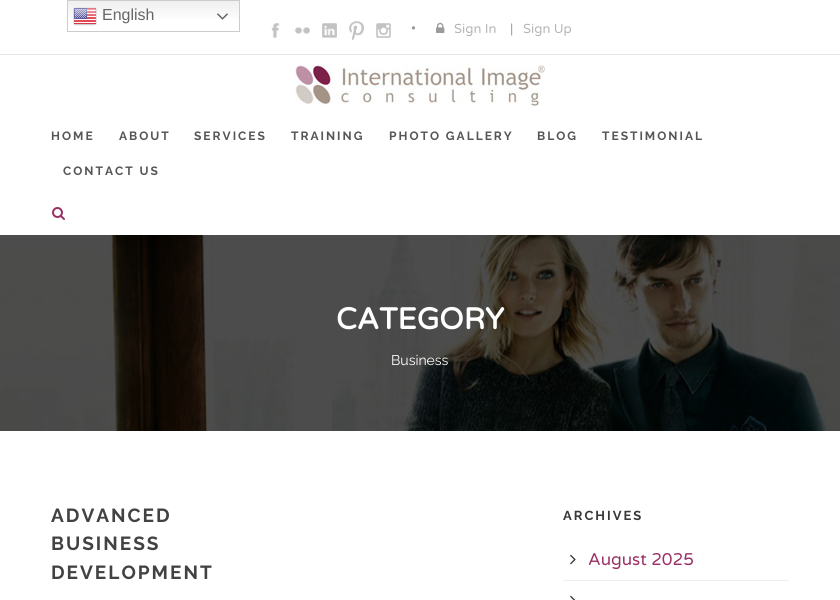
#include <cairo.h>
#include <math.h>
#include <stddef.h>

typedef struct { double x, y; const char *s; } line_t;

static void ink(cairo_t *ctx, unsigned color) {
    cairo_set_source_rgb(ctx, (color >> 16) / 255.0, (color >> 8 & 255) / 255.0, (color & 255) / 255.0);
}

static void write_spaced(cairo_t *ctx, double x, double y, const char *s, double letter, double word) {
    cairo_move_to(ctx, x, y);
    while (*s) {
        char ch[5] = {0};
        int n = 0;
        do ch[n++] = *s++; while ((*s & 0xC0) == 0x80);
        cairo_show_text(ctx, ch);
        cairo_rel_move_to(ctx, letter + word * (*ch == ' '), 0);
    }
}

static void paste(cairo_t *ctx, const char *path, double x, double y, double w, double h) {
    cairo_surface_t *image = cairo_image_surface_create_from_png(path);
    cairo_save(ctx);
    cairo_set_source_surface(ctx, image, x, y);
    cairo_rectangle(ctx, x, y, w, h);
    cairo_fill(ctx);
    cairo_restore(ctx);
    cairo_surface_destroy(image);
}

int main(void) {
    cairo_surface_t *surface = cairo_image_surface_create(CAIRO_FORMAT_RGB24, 840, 600);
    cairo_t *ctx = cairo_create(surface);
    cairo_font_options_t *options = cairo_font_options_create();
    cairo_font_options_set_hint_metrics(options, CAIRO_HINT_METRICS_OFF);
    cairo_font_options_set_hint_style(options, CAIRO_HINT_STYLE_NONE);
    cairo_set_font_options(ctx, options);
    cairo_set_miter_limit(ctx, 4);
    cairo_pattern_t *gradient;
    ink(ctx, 0xFFFFFF);
    cairo_paint(ctx);
    gradient = cairo_pattern_create_linear(154, 0, 154, 32);
    cairo_pattern_add_color_stop_rgba(gradient, 0, 0.937, 0.937, 0.937, 1);
    cairo_pattern_add_color_stop_rgba(gradient, 0.7, 1, 1, 1, 1);
    cairo_set_source(ctx, gradient);
    cairo_pattern_destroy(gradient);
    cairo_rectangle(ctx, 68, 1, 171, 18);
    cairo_fill(ctx);
    cairo_rectangle(ctx, 67.5, 0.5, 172, 31);
    ink(ctx, 0xCCCCCC);
    cairo_set_line_width(ctx, 1);
    cairo_stroke(ctx);
    paste(ctx, "media/1.png", 73, 7, 24, 19);
    cairo_select_font_face(ctx, "Liberation Sans", CAIRO_FONT_SLANT_NORMAL, CAIRO_FONT_WEIGHT_NORMAL);
    cairo_set_font_size(ctx, 16);
    ink(ctx, 0x666666);
    cairo_move_to(ctx, 102, 20);
    cairo_show_text(ctx, "English");
    paste(ctx, "media/2.png", 217, 13, 11, 7);
    ink(ctx, 0xE8E8E8);
    cairo_rectangle(ctx, 0, 54, 840, 1);
    cairo_fill(ctx);
    paste(ctx, "media/3.png", 271, 23, 9, 15);
    paste(ctx, "media/4.png", 295, 27, 15, 7);
    paste(ctx, "media/5.png", 322, 23, 15, 15);
    paste(ctx, "media/6.png", 349, 21, 15, 19);
    paste(ctx, "media/7.png", 376, 23, 15, 15);
    cairo_select_font_face(ctx, "Varela Round", CAIRO_FONT_SLANT_NORMAL, CAIRO_FONT_WEIGHT_NORMAL);
    cairo_set_font_size(ctx, 13);
    ink(ctx, 0x9B9B9B);
    cairo_move_to(ctx, 411, 33);
    cairo_show_text(ctx, "•");
    paste(ctx, "media/8.png", 436, 22, 9, 11);
    ink(ctx, 0xB5B5B5);
    cairo_move_to(ctx, 454, 33);
    cairo_show_text(ctx, "Sign In");
    ink(ctx, 0x9B9B9B);
    cairo_move_to(ctx, 510, 33);
    cairo_show_text(ctx, "|");
    ink(ctx, 0xB5B5B5);
    cairo_move_to(ctx, 523, 33);
    cairo_show_text(ctx, "Sign Up");
    paste(ctx, "media/9.png", 295, 65, 250, 41);
    cairo_select_font_face(ctx, "Raleway", CAIRO_FONT_SLANT_NORMAL, CAIRO_FONT_WEIGHT_BOLD);
    cairo_set_font_size(ctx, 12);
    ink(ctx, 0x565656);
    {
        static const line_t items[] = {
            {51, 140, "HOME"},
            {119, 140, "ABOUT"},
            {194, 140, "SERVICES"},
            {291, 140, "TRAINING"},
            {389, 140, "PHOTO GALLERY"},
            {537, 140, "BLOG"},
            {602, 140, "TESTIMONIAL"},
            {63, 175, "CONTACT US"},
        };
        for (size_t i = 0; i < sizeof items / sizeof *items; i++) {
            write_spaced(ctx, items[i].x, items[i].y, items[i].s, 2, 0);
        }
    }
    paste(ctx, "media/10.png", 52, 207, 13, 13);
    paste(ctx, "media/11.png", 0, 235, 840, 196);
    cairo_select_font_face(ctx, "Varela Round", CAIRO_FONT_SLANT_NORMAL, CAIRO_FONT_WEIGHT_BOLD);
    cairo_set_font_size(ctx, 30);
    ink(ctx, 0xFFFFFF);
    cairo_move_to(ctx, 336, 329);
    cairo_show_text(ctx, "CATEGORY");
    cairo_select_font_face(ctx, "Raleway", CAIRO_FONT_SLANT_NORMAL, CAIRO_FONT_WEIGHT_NORMAL);
    cairo_set_font_size(ctx, 14);
    cairo_move_to(ctx, 391, 365);
    cairo_show_text(ctx, "Business");
    cairo_select_font_face(ctx, "Raleway", CAIRO_FONT_SLANT_NORMAL, CAIRO_FONT_WEIGHT_BOLD);
    cairo_set_font_size(ctx, 19);
    ink(ctx, 0x424242);
    {
        static const line_t items[] = {
            {51, 522, "ADVANCED"},
            {51, 550, "BUSINESS"},
            {51, 579, "DEVELOPMENT"},
        };
        for (size_t i = 0; i < sizeof items / sizeof *items; i++) {
            write_spaced(ctx, items[i].x, items[i].y, items[i].s, 2, 0);
        }
    }
    cairo_set_font_size(ctx, 13);
    ink(ctx, 0x383838);
    write_spaced(ctx, 563, 520, "ARCHIVES", 2, 0);
    ink(ctx, 0xEEEEEE);
    cairo_rectangle(ctx, 563, 580, 226, 1);
    cairo_fill(ctx);
    paste(ctx, "media/12.png", 570, 554, 6, 11);
    cairo_select_font_face(ctx, "Varela Round", CAIRO_FONT_SLANT_NORMAL, CAIRO_FONT_WEIGHT_NORMAL);
    cairo_set_font_size(ctx, 17);
    ink(ctx, 0x993366);
    cairo_move_to(ctx, 588, 565);
    cairo_show_text(ctx, "August 2025");
    paste(ctx, "media/13.png", 570, 595, 6, 5);
    cairo_surface_write_to_png(surface, "image.png");
    cairo_font_options_destroy(options);
    cairo_destroy(ctx);
    cairo_surface_destroy(surface);
    return 0;
}
